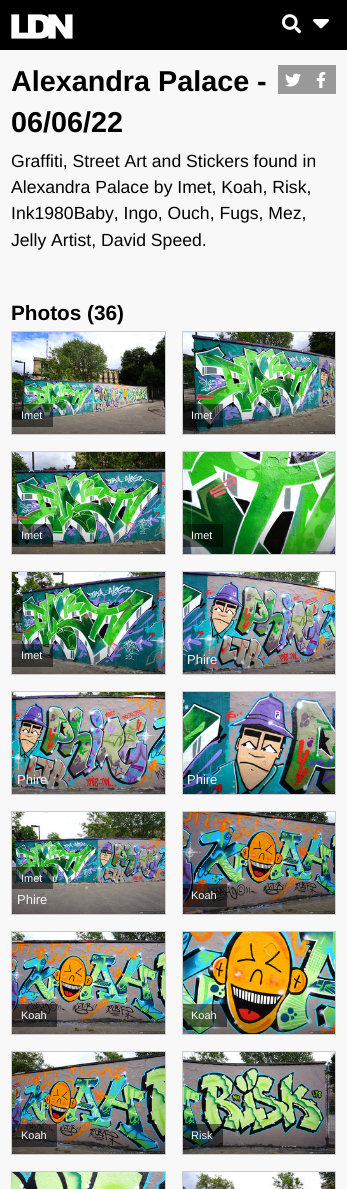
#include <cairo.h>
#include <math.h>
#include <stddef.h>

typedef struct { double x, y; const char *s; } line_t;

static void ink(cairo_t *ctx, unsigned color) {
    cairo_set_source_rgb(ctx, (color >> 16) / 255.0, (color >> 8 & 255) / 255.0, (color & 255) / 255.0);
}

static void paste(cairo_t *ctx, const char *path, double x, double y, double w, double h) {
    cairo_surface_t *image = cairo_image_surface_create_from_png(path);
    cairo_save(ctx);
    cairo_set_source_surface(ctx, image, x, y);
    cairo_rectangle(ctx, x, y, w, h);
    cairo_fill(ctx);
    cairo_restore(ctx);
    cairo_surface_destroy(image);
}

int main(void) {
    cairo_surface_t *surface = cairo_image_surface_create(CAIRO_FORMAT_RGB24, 347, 1189);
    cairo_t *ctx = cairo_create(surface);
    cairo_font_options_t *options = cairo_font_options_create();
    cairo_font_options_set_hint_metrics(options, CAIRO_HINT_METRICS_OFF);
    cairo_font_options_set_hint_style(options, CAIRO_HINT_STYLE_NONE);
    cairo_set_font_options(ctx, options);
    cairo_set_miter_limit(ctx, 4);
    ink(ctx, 0xF8F8F8);
    cairo_paint(ctx);
    ink(ctx, 0x000000);
    cairo_rectangle(ctx, 0, 0, 347, 50);
    cairo_fill(ctx);
    paste(ctx, "media/1.png", 11, 14, 62, 25);
    paste(ctx, "media/2.png", 282, 14, 20, 20);
    paste(ctx, "media/3.png", 313, 19, 16, 10);
    cairo_select_font_face(ctx, "Liberation Sans", CAIRO_FONT_SLANT_NORMAL, CAIRO_FONT_WEIGHT_BOLD);
    cairo_set_font_size(ctx, 28.75);
    cairo_move_to(ctx, 11, 91);
    cairo_show_text(ctx, "Alexandra Palace -");
    cairo_move_to(ctx, 11, 132);
    cairo_show_text(ctx, "06/06/22");
    ink(ctx, 0x999999);
    cairo_rectangle(ctx, 278, 65, 58, 29);
    cairo_fill(ctx);
    paste(ctx, "media/4.png", 285, 73, 16, 14);
    paste(ctx, "media/5.png", 316, 72, 10, 16);
    cairo_select_font_face(ctx, "Liberation Sans", CAIRO_FONT_SLANT_NORMAL, CAIRO_FONT_WEIGHT_NORMAL);
    cairo_set_font_size(ctx, 17.6);
    ink(ctx, 0x000000);
    {
        static const line_t items[] = {
            {11, 167, "Graffiti, Street Art and Stickers found in"},
            {11, 193, "Alexandra Palace by Imet, Koah, Risk,"},
            {11, 219, "Ink1980Baby, Ingo, Ouch, Fugs, Mez,"},
            {11, 246, "Jelly Artist, David Speed."},
        };
        for (size_t i = 0; i < sizeof items / sizeof *items; i++) {
            cairo_move_to(ctx, items[i].x, items[i].y);
            cairo_show_text(ctx, items[i].s);
        }
    }
    cairo_select_font_face(ctx, "Liberation Sans", CAIRO_FONT_SLANT_NORMAL, CAIRO_FONT_WEIGHT_BOLD);
    cairo_set_font_size(ctx, 20.75);
    cairo_move_to(ctx, 11, 320);
    cairo_show_text(ctx, "Photos (36)");
    cairo_rectangle(ctx, 11.5, 331.5, 154, 103);
    ink(ctx, 0xCCCCCC);
    cairo_set_line_width(ctx, 1);
    cairo_stroke(ctx);
    paste(ctx, "media/6.png", 12, 332, 153, 102);
    cairo_set_source_rgba(ctx, 0, 0, 0, 0.5);
    cairo_rectangle(ctx, 12, 404, 41, 23);
    cairo_fill(ctx);
    cairo_select_font_face(ctx, "Liberation Sans", CAIRO_FONT_SLANT_NORMAL, CAIRO_FONT_WEIGHT_NORMAL);
    cairo_set_font_size(ctx, 11);
    ink(ctx, 0xF8F8F8);
    cairo_move_to(ctx, 21, 419);
    cairo_show_text(ctx, "Imet");
    cairo_rectangle(ctx, 182.5, 331.5, 153, 103);
    ink(ctx, 0xCCCCCC);
    cairo_stroke(ctx);
    paste(ctx, "media/7.png", 183, 332, 152, 102);
    cairo_set_source_rgba(ctx, 0, 0, 0, 0.5);
    cairo_rectangle(ctx, 183, 404, 40, 23);
    cairo_fill(ctx);
    ink(ctx, 0xF8F8F8);
    cairo_move_to(ctx, 191, 419);
    cairo_show_text(ctx, "Imet");
    cairo_rectangle(ctx, 11.5, 451.5, 154, 103);
    ink(ctx, 0xCCCCCC);
    cairo_stroke(ctx);
    paste(ctx, "media/8.png", 12, 452, 153, 102);
    cairo_set_source_rgba(ctx, 0, 0, 0, 0.5);
    cairo_rectangle(ctx, 12, 524, 41, 23);
    cairo_fill(ctx);
    ink(ctx, 0xF8F8F8);
    cairo_move_to(ctx, 21, 539);
    cairo_show_text(ctx, "Imet");
    cairo_rectangle(ctx, 182.5, 451.5, 153, 103);
    ink(ctx, 0xCCCCCC);
    cairo_stroke(ctx);
    paste(ctx, "media/9.png", 183, 452, 152, 102);
    cairo_set_source_rgba(ctx, 0, 0, 0, 0.5);
    cairo_rectangle(ctx, 183, 524, 40, 23);
    cairo_fill(ctx);
    ink(ctx, 0xF8F8F8);
    cairo_move_to(ctx, 191, 539);
    cairo_show_text(ctx, "Imet");
    cairo_rectangle(ctx, 11.5, 571.5, 154, 103);
    ink(ctx, 0xCCCCCC);
    cairo_stroke(ctx);
    paste(ctx, "media/10.png", 12, 572, 153, 102);
    cairo_set_source_rgba(ctx, 0, 0, 0, 0.5);
    cairo_rectangle(ctx, 12, 644, 41, 23);
    cairo_fill(ctx);
    ink(ctx, 0xF8F8F8);
    cairo_move_to(ctx, 21, 659);
    cairo_show_text(ctx, "Imet");
    cairo_rectangle(ctx, 182.5, 571.5, 153, 103);
    ink(ctx, 0xCCCCCC);
    cairo_stroke(ctx);
    paste(ctx, "media/11.png", 183, 572, 152, 102);
    cairo_set_font_size(ctx, 13);
    ink(ctx, 0xF8F8F8);
    cairo_move_to(ctx, 187, 664);
    cairo_show_text(ctx, "Phire");
    cairo_rectangle(ctx, 11.5, 691.5, 154, 103);
    ink(ctx, 0xCCCCCC);
    cairo_stroke(ctx);
    paste(ctx, "media/12.png", 12, 692, 153, 102);
    ink(ctx, 0xF8F8F8);
    cairo_move_to(ctx, 17, 784);
    cairo_show_text(ctx, "Phire");
    cairo_rectangle(ctx, 182.5, 691.5, 153, 103);
    ink(ctx, 0xCCCCCC);
    cairo_stroke(ctx);
    paste(ctx, "media/13.png", 183, 692, 152, 102);
    ink(ctx, 0xF8F8F8);
    cairo_move_to(ctx, 187, 784);
    cairo_show_text(ctx, "Phire");
    cairo_rectangle(ctx, 11.5, 811.5, 154, 103);
    ink(ctx, 0xCCCCCC);
    cairo_stroke(ctx);
    paste(ctx, "media/14.png", 12, 812, 153, 102);
    cairo_set_source_rgba(ctx, 0, 0, 0, 0.5);
    cairo_rectangle(ctx, 12, 867, 41, 22);
    cairo_fill(ctx);
    cairo_set_font_size(ctx, 11);
    ink(ctx, 0xF8F8F8);
    cairo_move_to(ctx, 21, 882);
    cairo_show_text(ctx, "Imet");
    cairo_set_font_size(ctx, 13);
    cairo_move_to(ctx, 17, 904);
    cairo_show_text(ctx, "Phire");
    cairo_rectangle(ctx, 182.5, 811.5, 153, 103);
    ink(ctx, 0xCCCCCC);
    cairo_stroke(ctx);
    paste(ctx, "media/15.png", 183, 812, 152, 102);
    cairo_set_source_rgba(ctx, 0, 0, 0, 0.5);
    cairo_rectangle(ctx, 183, 884, 44, 23);
    cairo_fill(ctx);
    cairo_set_font_size(ctx, 11);
    ink(ctx, 0xF8F8F8);
    cairo_move_to(ctx, 191, 899);
    cairo_show_text(ctx, "Koah");
    cairo_rectangle(ctx, 11.5, 931.5, 154, 103);
    ink(ctx, 0xCCCCCC);
    cairo_stroke(ctx);
    paste(ctx, "media/16.png", 12, 932, 153, 102);
    cairo_set_source_rgba(ctx, 0, 0, 0, 0.5);
    cairo_rectangle(ctx, 12, 1004, 45, 23);
    cairo_fill(ctx);
    ink(ctx, 0xF8F8F8);
    cairo_move_to(ctx, 21, 1019);
    cairo_show_text(ctx, "Koah");
    cairo_rectangle(ctx, 182.5, 931.5, 153, 103);
    ink(ctx, 0xCCCCCC);
    cairo_stroke(ctx);
    paste(ctx, "media/17.png", 183, 932, 152, 102);
    cairo_set_source_rgba(ctx, 0, 0, 0, 0.5);
    cairo_rectangle(ctx, 183, 1004, 44, 23);
    cairo_fill(ctx);
    ink(ctx, 0xF8F8F8);
    cairo_move_to(ctx, 191, 1019);
    cairo_show_text(ctx, "Koah");
    cairo_rectangle(ctx, 11.5, 1051.5, 154, 103);
    ink(ctx, 0xCCCCCC);
    cairo_stroke(ctx);
    paste(ctx, "media/18.png", 12, 1052, 153, 102);
    cairo_set_source_rgba(ctx, 0, 0, 0, 0.5);
    cairo_rectangle(ctx, 12, 1124, 45, 23);
    cairo_fill(ctx);
    ink(ctx, 0xF8F8F8);
    cairo_move_to(ctx, 21, 1139);
    cairo_show_text(ctx, "Koah");
    cairo_rectangle(ctx, 182.5, 1051.5, 153, 103);
    ink(ctx, 0xCCCCCC);
    cairo_stroke(ctx);
    paste(ctx, "media/19.png", 183, 1052, 152, 102);
    cairo_set_source_rgba(ctx, 0, 0, 0, 0.5);
    cairo_rectangle(ctx, 183, 1124, 40, 23);
    cairo_fill(ctx);
    ink(ctx, 0xF8F8F8);
    cairo_move_to(ctx, 191, 1139);
    cairo_show_text(ctx, "Risk");
    cairo_rectangle(ctx, 11.5, 1171.5, 154, 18);
    ink(ctx, 0xCCCCCC);
    cairo_stroke(ctx);
    paste(ctx, "media/20.png", 12, 1172, 153, 17);
    cairo_rectangle(ctx, 182.5, 1171.5, 153, 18);
    cairo_stroke(ctx);
    paste(ctx, "media/21.png", 183, 1172, 152, 17);
    cairo_surface_write_to_png(surface, "image.png");
    cairo_font_options_destroy(options);
    cairo_destroy(ctx);
    cairo_surface_destroy(surface);
    return 0;
}
